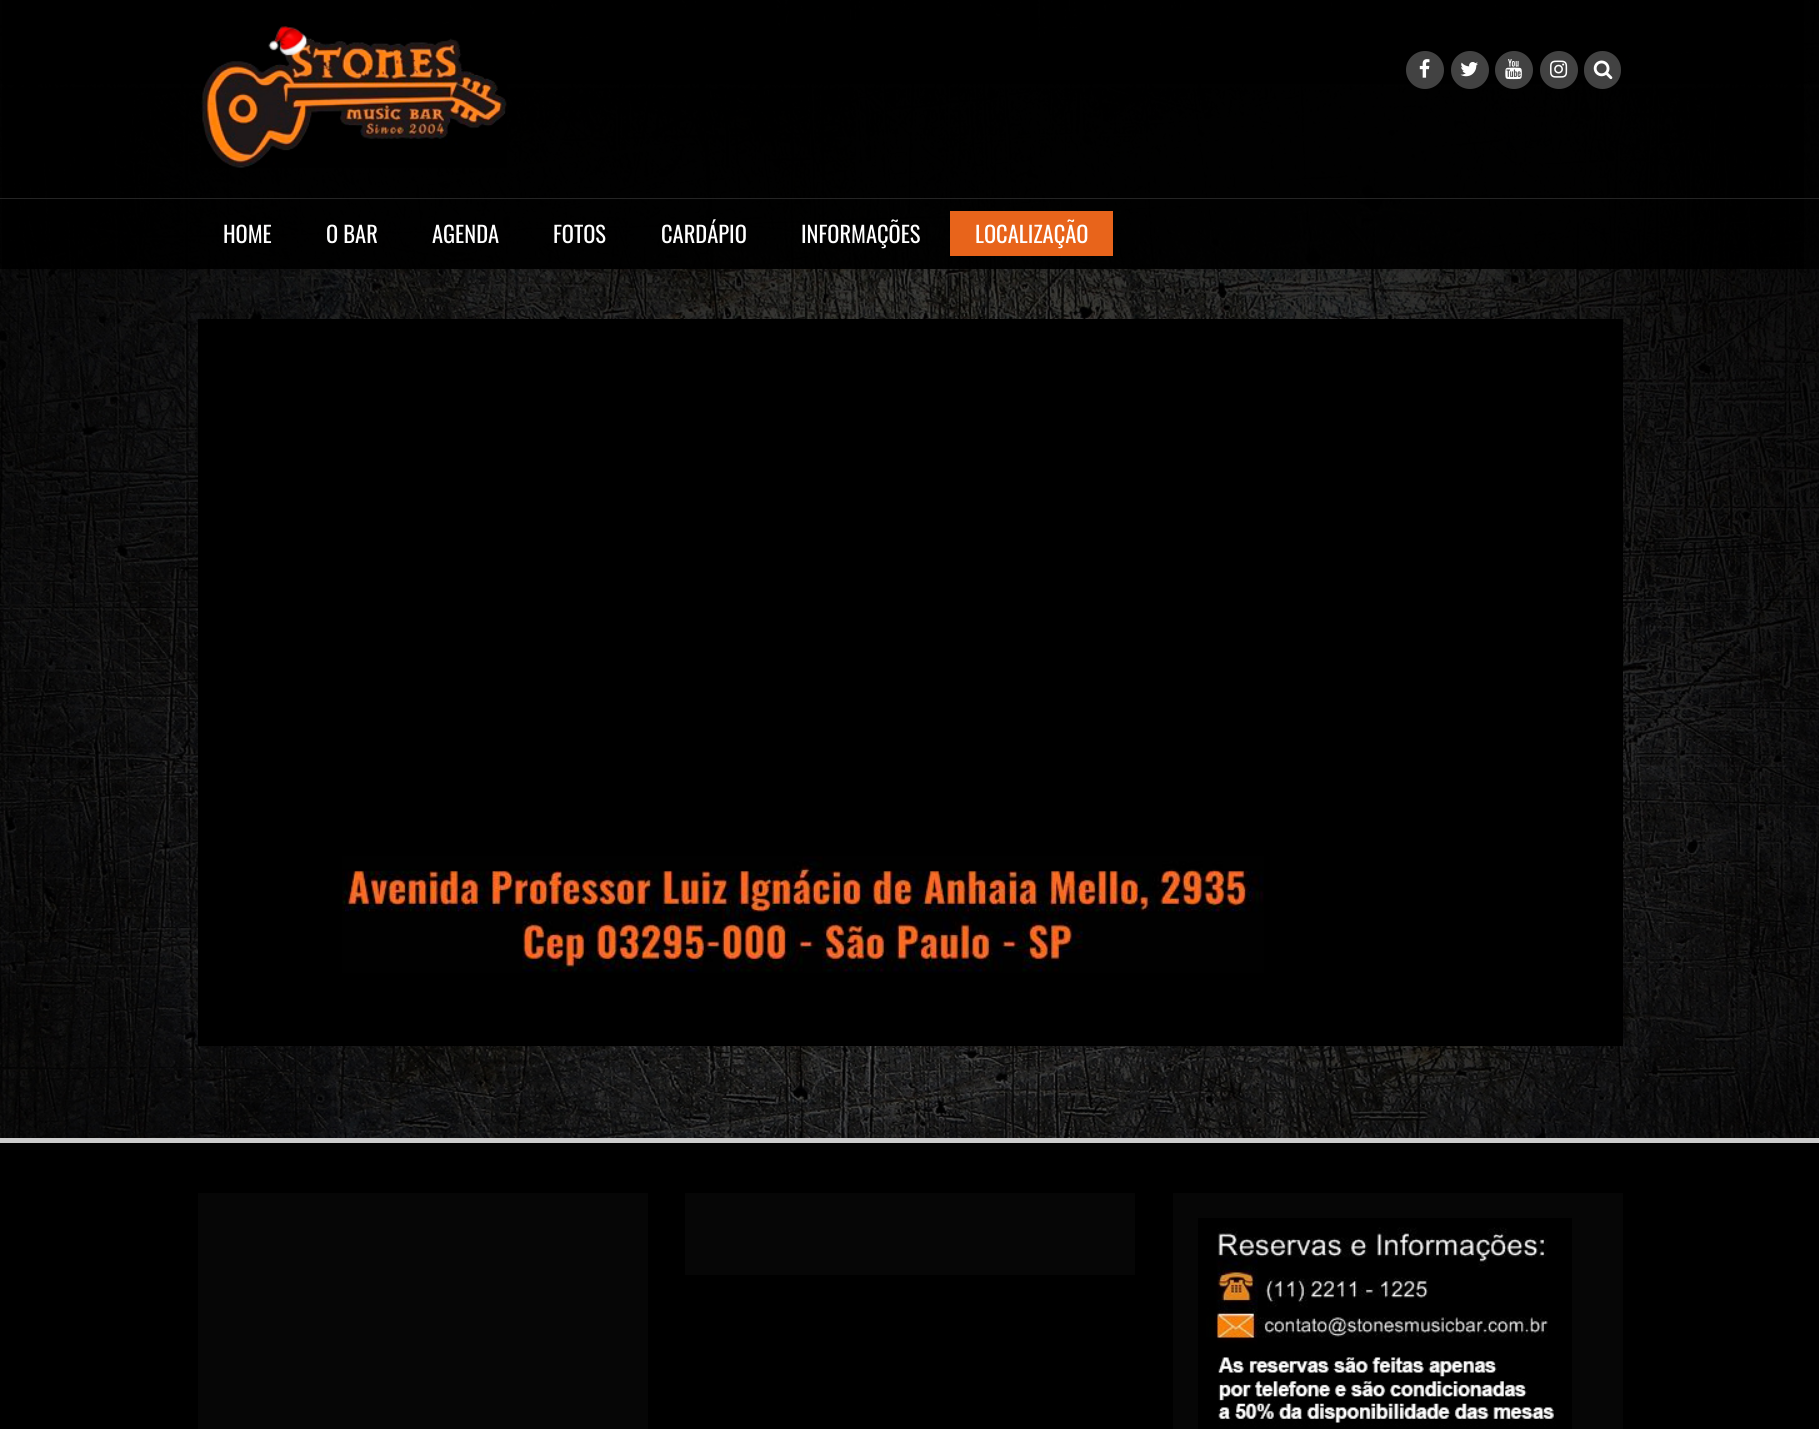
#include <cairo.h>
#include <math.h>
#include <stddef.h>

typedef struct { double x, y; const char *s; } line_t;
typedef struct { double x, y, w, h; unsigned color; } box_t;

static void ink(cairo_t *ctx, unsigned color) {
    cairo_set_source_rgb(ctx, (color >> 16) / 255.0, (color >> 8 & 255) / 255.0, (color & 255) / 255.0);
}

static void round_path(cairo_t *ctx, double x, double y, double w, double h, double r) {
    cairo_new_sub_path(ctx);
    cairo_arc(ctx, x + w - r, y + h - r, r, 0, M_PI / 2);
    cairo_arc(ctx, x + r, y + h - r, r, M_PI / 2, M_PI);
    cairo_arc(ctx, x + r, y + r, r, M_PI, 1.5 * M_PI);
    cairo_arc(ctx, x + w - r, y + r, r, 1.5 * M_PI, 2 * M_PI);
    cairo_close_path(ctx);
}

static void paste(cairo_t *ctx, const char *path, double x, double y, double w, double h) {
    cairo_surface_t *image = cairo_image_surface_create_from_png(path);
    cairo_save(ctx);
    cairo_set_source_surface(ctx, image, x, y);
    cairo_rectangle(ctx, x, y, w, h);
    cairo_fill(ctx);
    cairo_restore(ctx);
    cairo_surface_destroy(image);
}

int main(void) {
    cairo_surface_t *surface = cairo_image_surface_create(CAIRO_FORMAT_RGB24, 1819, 1429);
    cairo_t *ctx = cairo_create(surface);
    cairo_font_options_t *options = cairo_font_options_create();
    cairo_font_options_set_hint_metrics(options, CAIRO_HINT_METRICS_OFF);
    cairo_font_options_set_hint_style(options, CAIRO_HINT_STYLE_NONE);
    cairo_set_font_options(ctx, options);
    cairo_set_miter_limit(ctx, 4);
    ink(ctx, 0xFFFFFF);
    cairo_paint(ctx);
    paste(ctx, "media/1.png", 0, 0, 1819, 1138);
    cairo_set_source_rgba(ctx, 0, 0, 0, 0.8);
    cairo_rectangle(ctx, 0, 0, 1819, 269);
    cairo_fill(ctx);
    cairo_rectangle(ctx, 2, 0, 1802, 269);
    cairo_fill(ctx);
    ink(ctx, 0x252525);
    cairo_rectangle(ctx, 0, 198, 1819, 1);
    cairo_fill(ctx);
    paste(ctx, "media/2.png", 201, 26, 306, 142);
    ink(ctx, 0x424242);
    cairo_arc(ctx, 1425, 70, 19, 0, 2 * M_PI);
    cairo_fill(ctx);
    paste(ctx, "media/3.png", 1419, 59, 11, 19);
    cairo_arc(ctx, 1470, 70, 19, 0, 2 * M_PI);
    cairo_fill(ctx);
    paste(ctx, "media/4.png", 1460, 62, 18, 15);
    cairo_arc(ctx, 1514, 70, 19, 0, 2 * M_PI);
    cairo_fill(ctx);
    paste(ctx, "media/5.png", 1505, 59, 17, 21);
    cairo_arc(ctx, 1559, 70, 19, 0, 2 * M_PI);
    cairo_fill(ctx);
    paste(ctx, "media/6.png", 1550, 60, 18, 18);
    round_path(ctx, 1584, 51, 37, 38, 18.5);
    cairo_fill(ctx);
    paste(ctx, "media/7.png", 1593, 60, 20, 20);
    cairo_select_font_face(ctx, "Oswald", CAIRO_FONT_SLANT_NORMAL, CAIRO_FONT_WEIGHT_NORMAL);
    cairo_set_font_size(ctx, 22.5);
    ink(ctx, 0xFFFFFF);
    {
        static const line_t items[] = {
            {223, 243, "HOME"},
            {326, 243, "O BAR"},
            {432, 243, "AGENDA"},
            {553, 243, "FOTOS"},
            {661, 243, "CARDÁPIO"},
            {801, 243, "INFORMAÇÕES"},
        };
        for (size_t i = 0; i < sizeof items / sizeof *items; i++) {
            cairo_move_to(ctx, items[i].x, items[i].y);
            cairo_show_text(ctx, items[i].s);
        }
    }
    ink(ctx, 0xE8641B);
    cairo_rectangle(ctx, 950, 211, 163, 45);
    cairo_fill(ctx);
    ink(ctx, 0xFFFFFF);
    cairo_move_to(ctx, 975, 243);
    cairo_show_text(ctx, "LOCALIZAÇÃO");
    ink(ctx, 0x000000);
    cairo_rectangle(ctx, 198, 319, 1425, 727);
    cairo_fill(ctx);
    paste(ctx, "media/8.png", 342, 856, 922, 117);
    {
        static const box_t items[] = {
            {0, 1143, 1819, 286, 0x000000},
            {0, 1138, 1819, 5, 0xCCCCCC},
            {198, 1193, 450, 236, 0x060606},
            {685, 1193, 450, 82, 0x060606},
            {1173, 1193, 450, 236, 0x060606},
        };
        for (size_t i = 0; i < sizeof items / sizeof *items; i++) {
            ink(ctx, items[i].color);
            cairo_rectangle(ctx, items[i].x, items[i].y, items[i].w, items[i].h);
            cairo_fill(ctx);
        }
    }
    paste(ctx, "media/9.png", 1198, 1218, 374, 211);
    cairo_surface_write_to_png(surface, "image.png");
    cairo_font_options_destroy(options);
    cairo_destroy(ctx);
    cairo_surface_destroy(surface);
    return 0;
}
